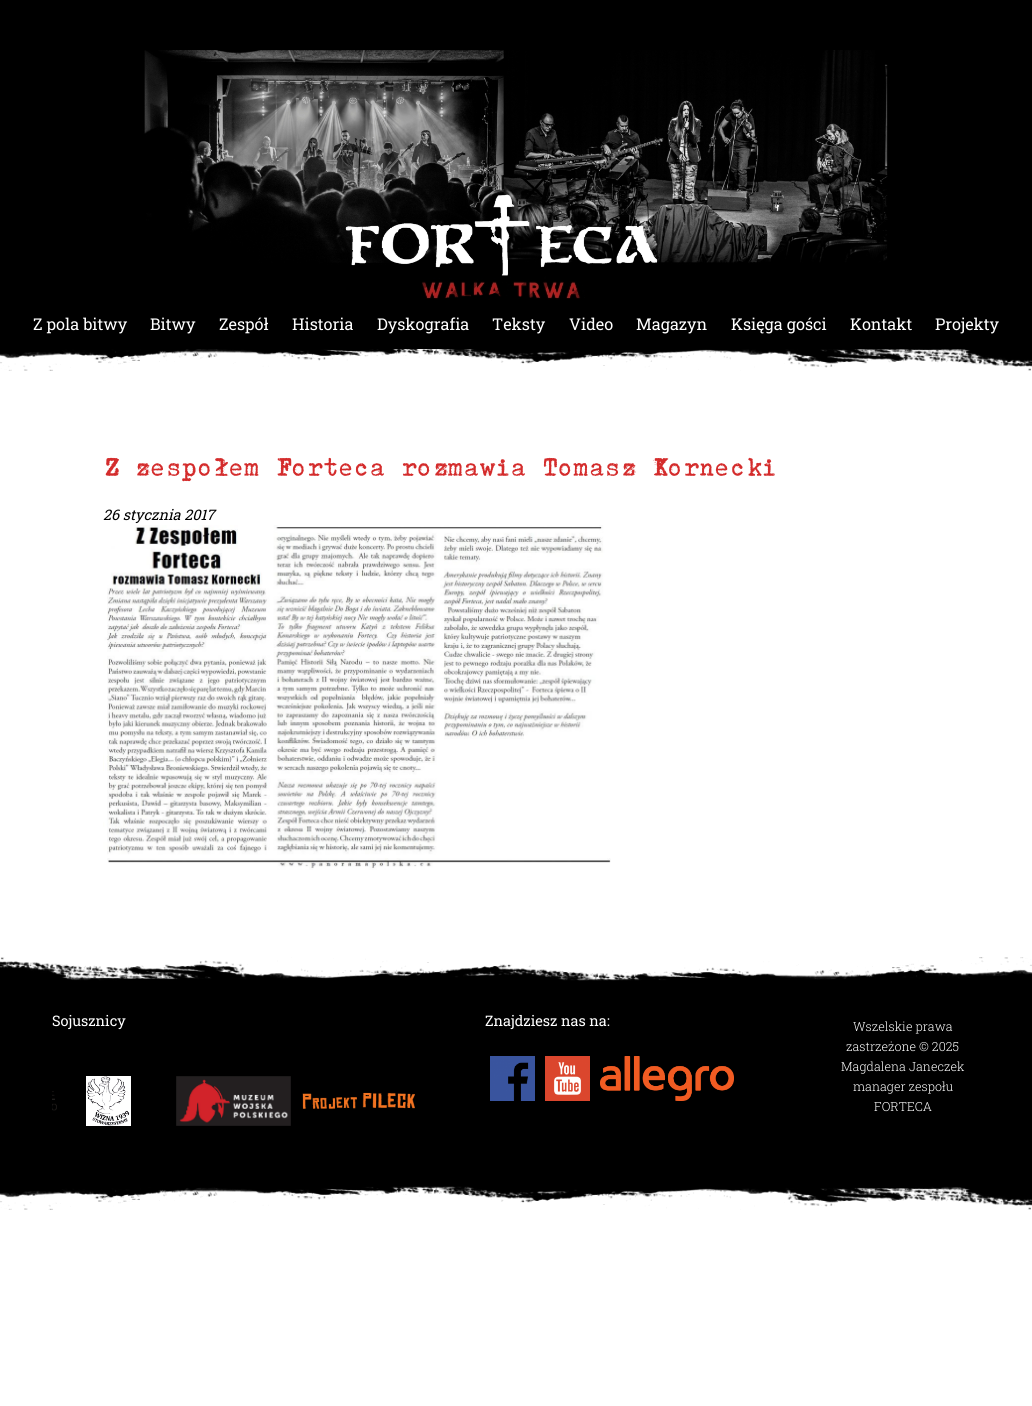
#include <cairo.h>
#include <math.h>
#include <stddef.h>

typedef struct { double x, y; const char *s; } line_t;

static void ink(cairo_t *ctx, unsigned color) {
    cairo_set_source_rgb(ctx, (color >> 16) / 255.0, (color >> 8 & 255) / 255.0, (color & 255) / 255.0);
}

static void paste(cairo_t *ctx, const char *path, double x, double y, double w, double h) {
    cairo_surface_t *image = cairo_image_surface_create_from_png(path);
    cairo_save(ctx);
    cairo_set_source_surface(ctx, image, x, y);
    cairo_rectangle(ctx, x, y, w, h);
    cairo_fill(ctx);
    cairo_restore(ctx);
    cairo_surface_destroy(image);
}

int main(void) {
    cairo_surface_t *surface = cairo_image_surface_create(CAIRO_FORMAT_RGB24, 1032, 1406);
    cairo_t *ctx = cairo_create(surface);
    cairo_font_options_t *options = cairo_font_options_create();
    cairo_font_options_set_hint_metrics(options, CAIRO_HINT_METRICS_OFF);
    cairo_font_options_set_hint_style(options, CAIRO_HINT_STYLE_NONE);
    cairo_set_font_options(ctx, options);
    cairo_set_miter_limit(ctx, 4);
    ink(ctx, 0xFFFFFF);
    cairo_paint(ctx);
    paste(ctx, "media/1.png", 0, 0, 1032, 300);
    ink(ctx, 0x000000);
    cairo_rectangle(ctx, 0, 300, 1032, 49);
    cairo_fill(ctx);
    paste(ctx, "media/2.png", 427, 289, 132, 10);
    cairo_select_font_face(ctx, "Roboto Slab", CAIRO_FONT_SLANT_NORMAL, CAIRO_FONT_WEIGHT_NORMAL);
    cairo_set_font_size(ctx, 16.25);
    ink(ctx, 0xFFFFFF);
    {
        static const line_t items[] = {
            {33, 330, "Z pola bitwy"},
            {150, 330, "Bitwy"},
            {219, 330, "Zespół"},
            {292, 330, "Historia"},
            {377, 330, "Dyskografia"},
            {492, 330, "Teksty"},
            {569, 330, "Video"},
            {636, 330, "Magazyn"},
            {731, 330, "Księga gości"},
            {850, 330, "Kontakt"},
            {935, 330, "Projekty"},
        };
        for (size_t i = 0; i < sizeof items / sizeof *items; i++) {
            cairo_move_to(ctx, items[i].x, items[i].y);
            cairo_show_text(ctx, items[i].s);
        }
    }
    paste(ctx, "media/3.png", 0, 349, 1032, 22);
    cairo_select_font_face(ctx, "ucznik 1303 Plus", CAIRO_FONT_SLANT_NORMAL, CAIRO_FONT_WEIGHT_NORMAL);
    cairo_set_font_size(ctx, 26.1);
    ink(ctx, 0xD42C2C);
    cairo_move_to(ctx, 103, 476);
    cairo_show_text(ctx, "Z zespołem Forteca rozmawia Tomasz Kornecki");
    cairo_select_font_face(ctx, "Roboto Slab", CAIRO_FONT_SLANT_ITALIC, CAIRO_FONT_WEIGHT_NORMAL);
    cairo_set_font_size(ctx, 14.5);
    ink(ctx, 0x000000);
    cairo_move_to(ctx, 103, 520);
    cairo_show_text(ctx, "26 stycznia 2017");
    paste(ctx, "media/4.png", 103, 525, 508, 345);
    cairo_rectangle(ctx, 0, 981, 1032, 205);
    cairo_fill(ctx);
    paste(ctx, "media/5.png", 0, 957, 1032, 24);
    cairo_select_font_face(ctx, "Roboto Slab", CAIRO_FONT_SLANT_NORMAL, CAIRO_FONT_WEIGHT_NORMAL);
    ink(ctx, 0xFFFFFF);
    cairo_move_to(ctx, 52, 1026);
    cairo_show_text(ctx, "Sojusznicy");
    paste(ctx, "media/6.png", 52, 1091, 5, 20);
    paste(ctx, "media/7.png", 86, 1076, 45, 50);
    paste(ctx, "media/8.png", 176, 1076, 115, 50);
    paste(ctx, "media/9.png", 302, 1092, 113, 17);
    cairo_move_to(ctx, 485, 1026);
    cairo_show_text(ctx, "Znajdziesz nas na:");
    paste(ctx, "media/10.png", 490, 1056, 45, 45);
    paste(ctx, "media/11.png", 545, 1056, 45, 45);
    paste(ctx, "media/12.png", 600, 1056, 134, 45);
    cairo_select_font_face(ctx, "Roboto Slab Light", CAIRO_FONT_SLANT_NORMAL, CAIRO_FONT_WEIGHT_NORMAL);
    cairo_set_font_size(ctx, 12.5);
    {
        static const line_t items[] = {
            {853, 1031, "Wszelskie prawa"},
            {846, 1051, "zastrzeżone © 2025"},
            {841, 1071, "Magdalena Janeczek"},
            {853, 1091, "manager zespołu"},
            {874, 1111, "FORTECA"},
        };
        for (size_t i = 0; i < sizeof items / sizeof *items; i++) {
            cairo_move_to(ctx, items[i].x, items[i].y);
            cairo_show_text(ctx, items[i].s);
        }
    }
    paste(ctx, "media/13.png", 0, 1186, 1032, 24);
    cairo_surface_write_to_png(surface, "image.png");
    cairo_font_options_destroy(options);
    cairo_destroy(ctx);
    cairo_surface_destroy(surface);
    return 0;
}
